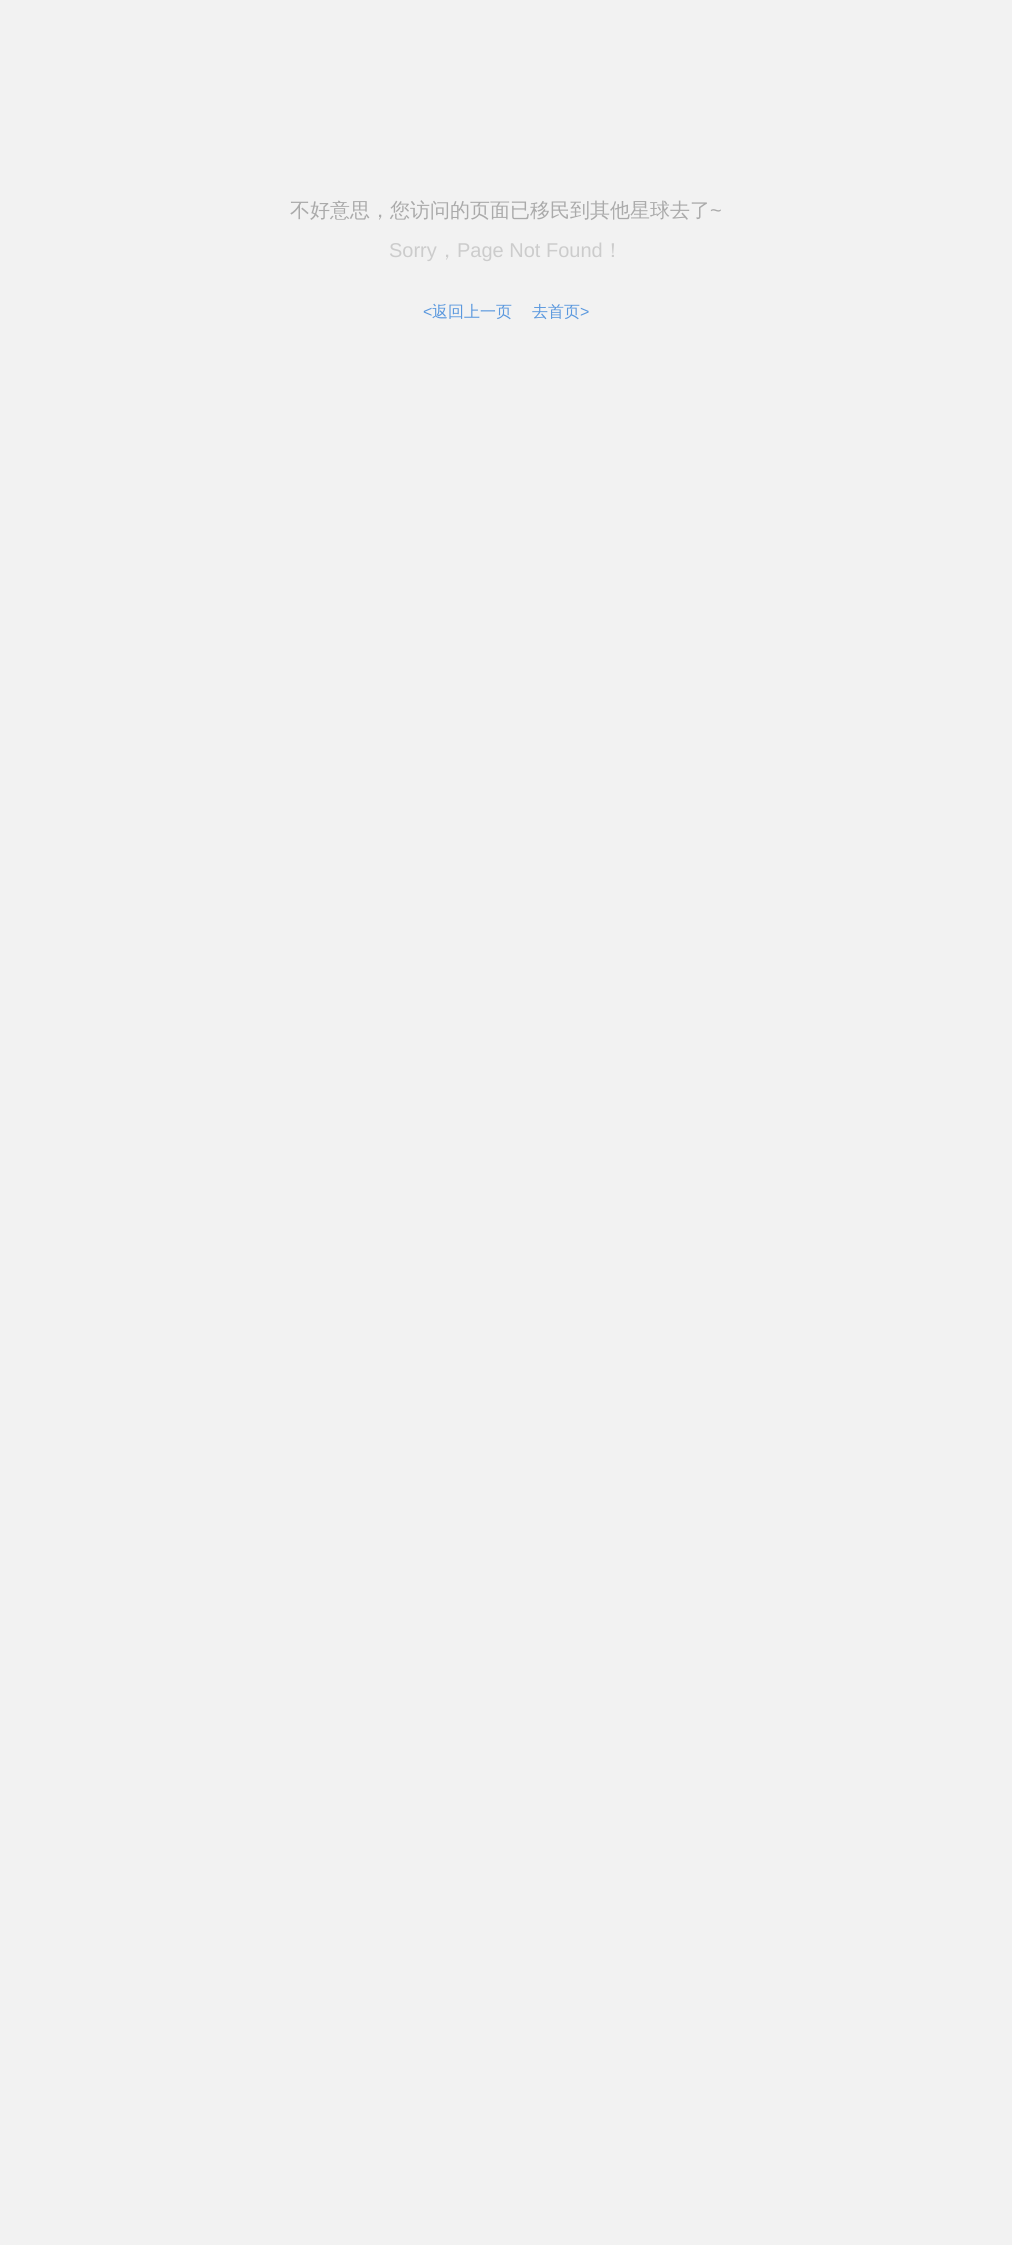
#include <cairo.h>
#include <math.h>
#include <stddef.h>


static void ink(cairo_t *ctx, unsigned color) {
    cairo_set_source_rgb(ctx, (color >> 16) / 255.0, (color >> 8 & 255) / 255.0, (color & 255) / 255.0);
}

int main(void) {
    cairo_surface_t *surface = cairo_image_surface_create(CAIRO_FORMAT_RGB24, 1012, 2245);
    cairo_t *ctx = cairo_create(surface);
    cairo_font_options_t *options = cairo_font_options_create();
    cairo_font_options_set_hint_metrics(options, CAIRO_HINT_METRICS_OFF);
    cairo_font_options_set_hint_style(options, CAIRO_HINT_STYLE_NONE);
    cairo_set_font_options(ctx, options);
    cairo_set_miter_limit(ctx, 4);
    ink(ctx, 0xF2F2F2);
    cairo_paint(ctx);
    cairo_select_font_face(ctx, "WenQuanYi Zen Hei Medium", CAIRO_FONT_SLANT_NORMAL, CAIRO_FONT_WEIGHT_NORMAL);
    cairo_set_font_size(ctx, 20);
    ink(ctx, 0xAAAAAA);
    cairo_move_to(ctx, 290, 217);
    cairo_show_text(ctx, "不好意思，您访问的页面已移民到其他星球去了");
    cairo_select_font_face(ctx, "Liberation Sans", CAIRO_FONT_SLANT_NORMAL, CAIRO_FONT_WEIGHT_NORMAL);
    cairo_move_to(ctx, 710, 217);
    cairo_show_text(ctx, "~");
    ink(ctx, 0xCCCCCC);
    cairo_move_to(ctx, 389, 257);
    cairo_show_text(ctx, "Sorry");
    cairo_select_font_face(ctx, "WenQuanYi Zen Hei Medium", CAIRO_FONT_SLANT_NORMAL, CAIRO_FONT_WEIGHT_NORMAL);
    cairo_move_to(ctx, 437, 257);
    cairo_show_text(ctx, "，");
    cairo_select_font_face(ctx, "Liberation Sans", CAIRO_FONT_SLANT_NORMAL, CAIRO_FONT_WEIGHT_NORMAL);
    cairo_move_to(ctx, 457, 257);
    cairo_show_text(ctx, "Page Not Found");
    cairo_select_font_face(ctx, "WenQuanYi Zen Hei Medium", CAIRO_FONT_SLANT_NORMAL, CAIRO_FONT_WEIGHT_NORMAL);
    cairo_move_to(ctx, 603, 257);
    cairo_show_text(ctx, "！");
    cairo_select_font_face(ctx, "Liberation Sans", CAIRO_FONT_SLANT_NORMAL, CAIRO_FONT_WEIGHT_NORMAL);
    cairo_set_font_size(ctx, 16);
    ink(ctx, 0x5A98DE);
    cairo_move_to(ctx, 423, 317);
    cairo_show_text(ctx, "<");
    cairo_select_font_face(ctx, "WenQuanYi Zen Hei Medium", CAIRO_FONT_SLANT_NORMAL, CAIRO_FONT_WEIGHT_NORMAL);
    cairo_move_to(ctx, 432, 317);
    cairo_show_text(ctx, "返回上一页");
    cairo_move_to(ctx, 532, 317);
    cairo_show_text(ctx, "去首页");
    cairo_select_font_face(ctx, "Liberation Sans", CAIRO_FONT_SLANT_NORMAL, CAIRO_FONT_WEIGHT_NORMAL);
    cairo_move_to(ctx, 580, 317);
    cairo_show_text(ctx, ">");
    cairo_surface_write_to_png(surface, "image.png");
    cairo_font_options_destroy(options);
    cairo_destroy(ctx);
    cairo_surface_destroy(surface);
    return 0;
}
